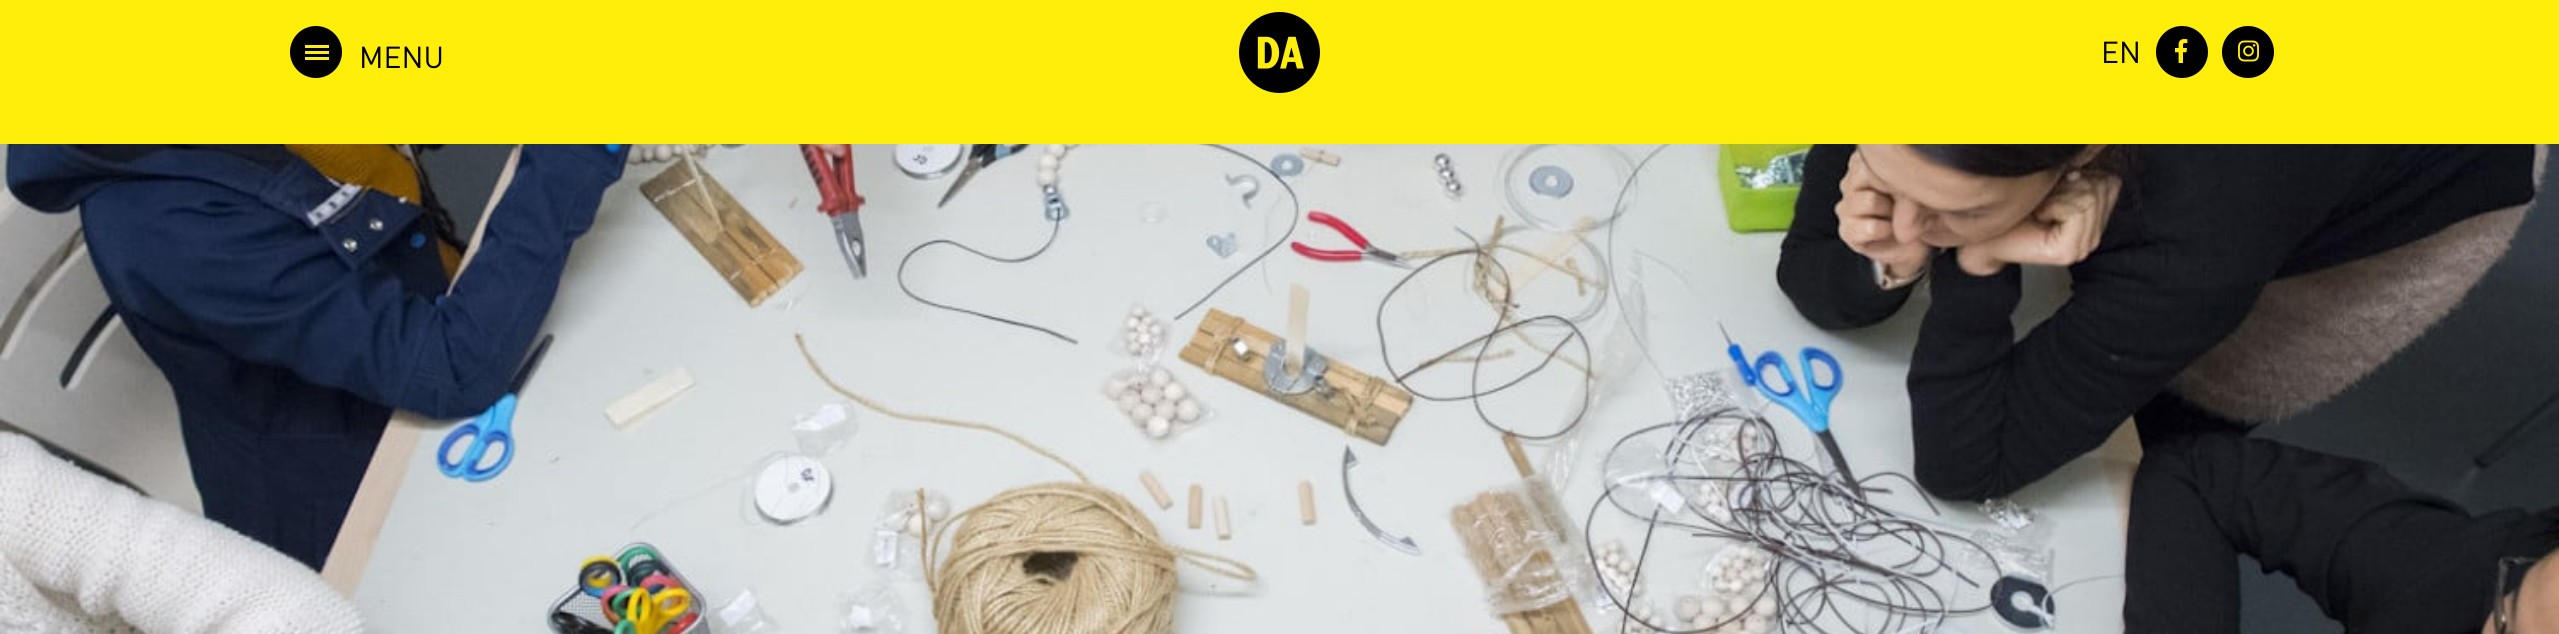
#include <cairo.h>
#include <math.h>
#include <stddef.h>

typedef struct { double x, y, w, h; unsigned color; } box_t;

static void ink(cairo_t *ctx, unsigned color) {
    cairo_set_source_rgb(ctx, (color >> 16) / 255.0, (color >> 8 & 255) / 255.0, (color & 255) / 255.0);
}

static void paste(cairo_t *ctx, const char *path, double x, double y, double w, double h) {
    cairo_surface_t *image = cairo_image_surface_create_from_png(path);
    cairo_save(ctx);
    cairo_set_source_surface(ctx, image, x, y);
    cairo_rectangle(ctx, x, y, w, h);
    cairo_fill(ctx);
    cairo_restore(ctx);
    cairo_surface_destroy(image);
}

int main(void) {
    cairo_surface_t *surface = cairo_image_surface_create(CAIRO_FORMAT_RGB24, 2559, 634);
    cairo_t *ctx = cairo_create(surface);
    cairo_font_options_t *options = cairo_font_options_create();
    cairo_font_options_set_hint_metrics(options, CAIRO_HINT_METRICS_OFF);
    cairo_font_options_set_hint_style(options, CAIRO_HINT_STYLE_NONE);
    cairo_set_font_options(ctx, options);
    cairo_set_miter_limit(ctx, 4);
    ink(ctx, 0xFFFFFF);
    cairo_paint(ctx);
    ink(ctx, 0xFFED0A);
    cairo_rectangle(ctx, 0, 0, 2559, 144);
    cairo_fill(ctx);
    ink(ctx, 0x000000);
    cairo_arc(ctx, 316, 52, 26, 0, 2 * M_PI);
    cairo_fill(ctx);
    {
        static const box_t items[] = {
            {305, 45, 24, 3, 0xFFED0A},
            {305, 51, 24, 3, 0xFFED0A},
            {305, 57, 24, 3, 0xFFED0A},
        };
        for (size_t i = 0; i < sizeof items / sizeof *items; i++) {
            ink(ctx, items[i].color);
            cairo_rectangle(ctx, items[i].x, items[i].y, items[i].w, items[i].h);
            cairo_fill(ctx);
        }
    }
    cairo_select_font_face(ctx, "DIN", CAIRO_FONT_SLANT_NORMAL, CAIRO_FONT_WEIGHT_NORMAL);
    cairo_set_font_size(ctx, 30);
    ink(ctx, 0x000000);
    cairo_move_to(ctx, 359, 68);
    cairo_show_text(ctx, "MENU");
    paste(ctx, "media/1.png", 1239, 12, 81, 81);
    cairo_move_to(ctx, 2101, 63);
    cairo_show_text(ctx, "EN");
    cairo_new_path(ctx);
    cairo_arc(ctx, 2182, 52, 26, 0, 2 * M_PI);
    cairo_fill(ctx);
    paste(ctx, "media/2.png", 2175, 39, 13, 24);
    cairo_arc(ctx, 2248, 52, 26, 0, 2 * M_PI);
    cairo_fill(ctx);
    paste(ctx, "media/3.png", 2238, 40, 21, 22);
    paste(ctx, "media/4.png", 0, 144, 2559, 490);
    cairo_surface_write_to_png(surface, "image.png");
    cairo_font_options_destroy(options);
    cairo_destroy(ctx);
    cairo_surface_destroy(surface);
    return 0;
}
